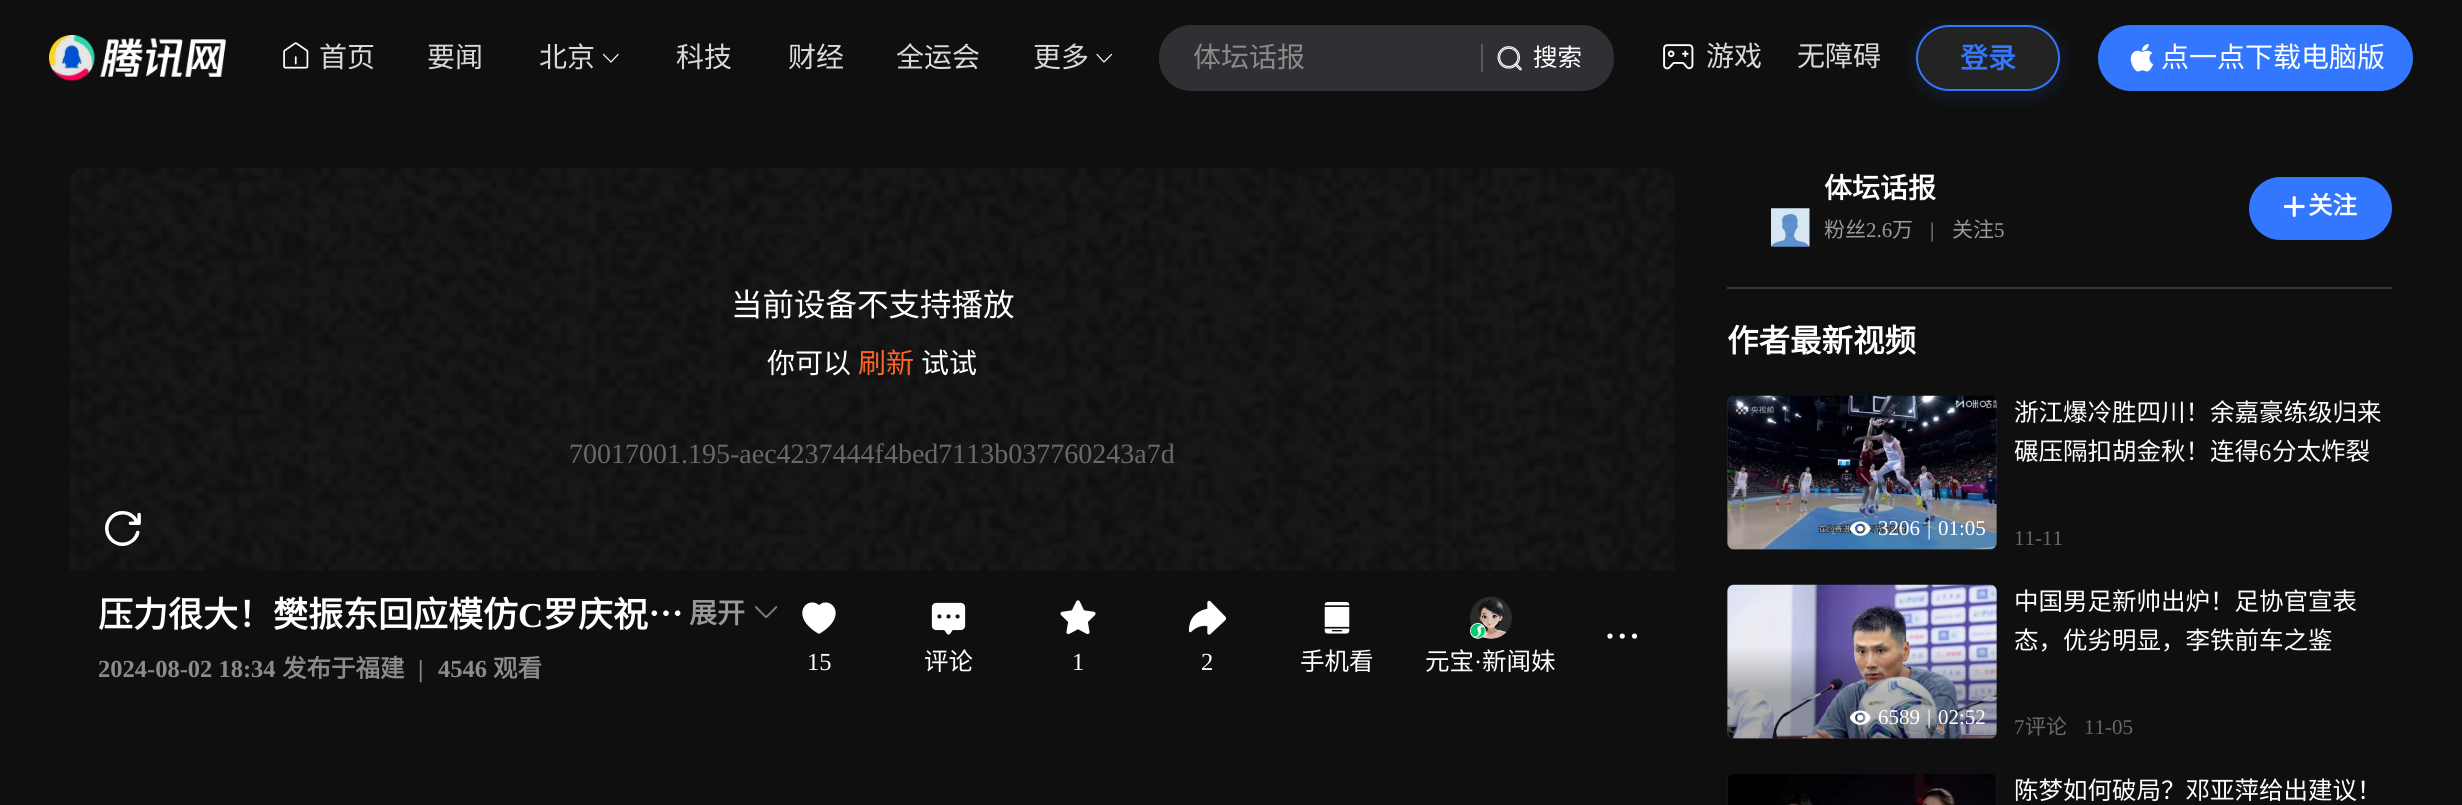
#include <cairo.h>
#include <math.h>
#include <stddef.h>

typedef struct { double x, y; const char *s; } line_t;

static void ink(cairo_t *ctx, unsigned color) {
    cairo_set_source_rgb(ctx, (color >> 16) / 255.0, (color >> 8 & 255) / 255.0, (color & 255) / 255.0);
}

static void round_path(cairo_t *ctx, double x, double y, double w, double h, double r) {
    cairo_new_sub_path(ctx);
    cairo_arc(ctx, x + w - r, y + h - r, r, 0, M_PI / 2);
    cairo_arc(ctx, x + r, y + h - r, r, M_PI / 2, M_PI);
    cairo_arc(ctx, x + r, y + r, r, M_PI, 1.5 * M_PI);
    cairo_arc(ctx, x + w - r, y + r, r, 1.5 * M_PI, 2 * M_PI);
    cairo_close_path(ctx);
}

static void blur_box(cairo_t *ctx, double x, double y, double w, double h, double r, double blur, double alpha) {
    cairo_push_group_with_content(ctx, CAIRO_CONTENT_ALPHA);
    cairo_set_operator(ctx, CAIRO_OPERATOR_SOURCE);
    for (int i = 15; i >= -15 && fmin(w, h) + blur * i / 3 > 0; i -= 2) {
        double e = blur * i / 6;
        cairo_set_source_rgba(ctx, 0, 0, 0, alpha * erfc((i - 1) / 8.5) / 2);
        round_path(ctx, x - e, y - e, w + 2 * e, h + 2 * e, fmax(0, fmin(r + e + blur * .6, fmin(w, h) / 2 + e)));
        cairo_fill(ctx);
    }
    cairo_pattern_t *soft = cairo_pop_group(ctx);
    cairo_mask(ctx, soft);
    cairo_pattern_destroy(soft);
}

static void paste(cairo_t *ctx, const char *path, double x, double y, double w, double h) {
    cairo_surface_t *image = cairo_image_surface_create_from_png(path);
    cairo_save(ctx);
    cairo_set_source_surface(ctx, image, x, y);
    cairo_rectangle(ctx, x, y, w, h);
    cairo_fill(ctx);
    cairo_restore(ctx);
    cairo_surface_destroy(image);
}

int main(void) {
    cairo_surface_t *surface = cairo_image_surface_create(CAIRO_FORMAT_RGB24, 2462, 805);
    cairo_t *ctx = cairo_create(surface);
    cairo_font_options_t *options = cairo_font_options_create();
    cairo_font_options_set_hint_metrics(options, CAIRO_HINT_METRICS_OFF);
    cairo_font_options_set_hint_style(options, CAIRO_HINT_STYLE_NONE);
    cairo_set_font_options(ctx, options);
    cairo_set_miter_limit(ctx, 4);
    cairo_pattern_t *gradient;
    ink(ctx, 0x0F0F0F);
    cairo_paint(ctx);
    paste(ctx, "media/1.png", 49, 35, 177, 46);
    paste(ctx, "media/2.png", 283, 42, 26, 27);
    cairo_select_font_face(ctx, "Noto Sans CJK SC", CAIRO_FONT_SLANT_NORMAL, CAIRO_FONT_WEIGHT_NORMAL);
    cairo_set_font_size(ctx, 28);
    ink(ctx, 0xD9D9D9);
    {
        static const line_t items[] = {
            {319, 67, "首页"},
            {427, 67, "要闻"},
            {539, 67, "北京"},
        };
        for (size_t i = 0; i < sizeof items / sizeof *items; i++) {
            cairo_move_to(ctx, items[i].x, items[i].y);
            cairo_show_text(ctx, items[i].s);
        }
    }
    cairo_new_path(ctx);
    cairo_move_to(ctx, 618, 54.5);
    cairo_line_to(ctx, 611, 62);
    cairo_line_to(ctx, 603.5, 54.5);
    ink(ctx, 0xFFFFFF);
    cairo_set_line_width(ctx, 1.2);
    cairo_set_line_cap(ctx, CAIRO_LINE_CAP_ROUND);
    cairo_set_line_join(ctx, CAIRO_LINE_JOIN_ROUND);
    cairo_stroke(ctx);
    ink(ctx, 0xD9D9D9);
    {
        static const line_t items[] = {
            {676, 67, "科技"},
            {788, 67, "财经"},
            {896, 67, "全运会"},
            {1033, 67, "更多"},
        };
        for (size_t i = 0; i < sizeof items / sizeof *items; i++) {
            cairo_move_to(ctx, items[i].x, items[i].y);
            cairo_show_text(ctx, items[i].s);
        }
    }
    cairo_new_path(ctx);
    cairo_move_to(ctx, 1111.5, 54.5);
    cairo_line_to(ctx, 1104, 62);
    cairo_line_to(ctx, 1097, 54.5);
    ink(ctx, 0xFFFFFF);
    cairo_stroke(ctx);
    ink(ctx, 0x2F2F34);
    round_path(ctx, 1159, 25, 455, 66, 32);
    cairo_fill(ctx);
    ink(ctx, 0x8B8B8B);
    cairo_move_to(ctx, 1193, 67);
    cairo_show_text(ctx, "体坛话报");
    ink(ctx, 0x59595D);
    cairo_rectangle(ctx, 1481, 44, 2, 28);
    cairo_fill(ctx);
    paste(ctx, "media/3.png", 1497, 46, 25, 25);
    cairo_set_font_size(ctx, 24.5);
    ink(ctx, 0xFFFFFF);
    cairo_move_to(ctx, 1533, 66);
    cairo_show_text(ctx, "搜索");
    paste(ctx, "media/4.png", 1663, 44, 31, 26);
    cairo_set_font_size(ctx, 28);
    ink(ctx, 0xD9D9D9);
    cairo_move_to(ctx, 1706, 66);
    cairo_show_text(ctx, "游戏");
    cairo_move_to(ctx, 1797, 66);
    cairo_show_text(ctx, "无障碍");
    cairo_save(ctx);
    cairo_set_fill_rule(ctx, CAIRO_FILL_RULE_EVEN_ODD);
    cairo_new_path(ctx);
    cairo_move_to(ctx, 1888, 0);
    cairo_line_to(ctx, 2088, 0);
    cairo_line_to(ctx, 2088, 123);
    cairo_line_to(ctx, 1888, 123);
    cairo_close_path(ctx);
    cairo_move_to(ctx, 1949, 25);
    cairo_line_to(ctx, 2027, 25);
    cairo_curve_to(ctx, 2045, 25, 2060, 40, 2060, 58);
    cairo_curve_to(ctx, 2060, 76, 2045, 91, 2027, 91);
    cairo_line_to(ctx, 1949, 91);
    cairo_curve_to(ctx, 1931, 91, 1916, 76, 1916, 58);
    cairo_curve_to(ctx, 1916, 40, 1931, 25, 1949, 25);
    cairo_close_path(ctx);
    cairo_clip(ctx);
    ink(ctx, 0x3377FF);
    blur_box(ctx, 1916, 28, 144, 67, 33.5, 9, 0.16);
    cairo_restore(ctx);
    cairo_set_source_rgba(ctx, 0.851, 0.851, 0.851, 0.1);
    round_path(ctx, 1917, 26, 142, 64, 32);
    cairo_fill_preserve(ctx);
    ink(ctx, 0x3377FF);
    cairo_set_line_width(ctx, 2);
    cairo_set_line_cap(ctx, CAIRO_LINE_CAP_BUTT);
    cairo_set_line_join(ctx, CAIRO_LINE_JOIN_MITER);
    cairo_stroke(ctx);
    cairo_select_font_face(ctx, "Noto Sans CJK SC", CAIRO_FONT_SLANT_NORMAL, CAIRO_FONT_WEIGHT_BOLD);
    cairo_move_to(ctx, 1960, 68);
    cairo_show_text(ctx, "登录");
    round_path(ctx, 2098, 25, 315, 66, 33);
    cairo_fill(ctx);
    paste(ctx, "media/5.png", 2130, 44, 24, 28);
    cairo_select_font_face(ctx, "Noto Sans CJK SC", CAIRO_FONT_SLANT_NORMAL, CAIRO_FONT_WEIGHT_NORMAL);
    ink(ctx, 0xFFFFFF);
    cairo_move_to(ctx, 2161, 67);
    cairo_show_text(ctx, "点一点下载电脑版");
    paste(ctx, "media/6.png", 70, 168, 1605, 403);
    cairo_set_font_size(ctx, 31.5);
    cairo_move_to(ctx, 731, 316);
    cairo_show_text(ctx, "当前设备不支持播放");
    cairo_set_font_size(ctx, 28);
    cairo_move_to(ctx, 767, 373);
    cairo_show_text(ctx, "你可以");
    ink(ctx, 0xFC6526);
    cairo_move_to(ctx, 858, 373);
    cairo_show_text(ctx, "刷新");
    ink(ctx, 0xFFFFFF);
    cairo_move_to(ctx, 921, 373);
    cairo_show_text(ctx, "试试");
    cairo_select_font_face(ctx, "Liberation Serif", CAIRO_FONT_SLANT_NORMAL, CAIRO_FONT_WEIGHT_NORMAL);
    ink(ctx, 0x696969);
    cairo_move_to(ctx, 569, 463);
    cairo_show_text(ctx, "70017001.195-aec4237444f4bed7113b037760243a7d");
    cairo_select_font_face(ctx, "Noto Sans CJK SC", CAIRO_FONT_SLANT_NORMAL, CAIRO_FONT_WEIGHT_BOLD);
    cairo_set_font_size(ctx, 35);
    ink(ctx, 0xFFFFFF);
    cairo_move_to(ctx, 98, 627);
    cairo_show_text(ctx, "压力很大！樊振东回应模仿");
    cairo_select_font_face(ctx, "Liberation Serif", CAIRO_FONT_SLANT_NORMAL, CAIRO_FONT_WEIGHT_BOLD);
    cairo_move_to(ctx, 518, 627);
    cairo_show_text(ctx, "C");
    cairo_select_font_face(ctx, "Noto Sans CJK SC", CAIRO_FONT_SLANT_NORMAL, CAIRO_FONT_WEIGHT_BOLD);
    cairo_move_to(ctx, 543, 627);
    cairo_show_text(ctx, "罗庆祝…");
    cairo_set_font_size(ctx, 28);
    ink(ctx, 0x999999);
    cairo_move_to(ctx, 689, 623);
    cairo_show_text(ctx, "展开");
    paste(ctx, "media/7.png", 754, 605, 23, 13);
    cairo_select_font_face(ctx, "Liberation Serif", CAIRO_FONT_SLANT_NORMAL, CAIRO_FONT_WEIGHT_BOLD);
    cairo_set_font_size(ctx, 24.5);
    ink(ctx, 0x8B8B8B);
    cairo_move_to(ctx, 98, 677);
    cairo_show_text(ctx, "2024-08-02 18:34");
    cairo_select_font_face(ctx, "Noto Sans CJK SC", CAIRO_FONT_SLANT_NORMAL, CAIRO_FONT_WEIGHT_BOLD);
    cairo_move_to(ctx, 282, 677);
    cairo_show_text(ctx, "发布于福建");
    cairo_select_font_face(ctx, "Liberation Serif", CAIRO_FONT_SLANT_NORMAL, CAIRO_FONT_WEIGHT_BOLD);
    cairo_move_to(ctx, 418, 677);
    cairo_show_text(ctx, "|");
    cairo_move_to(ctx, 438, 677);
    cairo_show_text(ctx, "4546");
    cairo_select_font_face(ctx, "Noto Sans CJK SC", CAIRO_FONT_SLANT_NORMAL, CAIRO_FONT_WEIGHT_BOLD);
    cairo_move_to(ctx, 493, 677);
    cairo_show_text(ctx, "观看");
    paste(ctx, "media/8.png", 1607, 633, 31, 6);
    paste(ctx, "media/9.png", 802, 602, 34, 32);
    cairo_select_font_face(ctx, "Liberation Serif", CAIRO_FONT_SLANT_NORMAL, CAIRO_FONT_WEIGHT_NORMAL);
    ink(ctx, 0xFFFFFF);
    cairo_move_to(ctx, 807, 670);
    cairo_show_text(ctx, "15");
    paste(ctx, "media/10.png", 931, 602, 35, 33);
    cairo_select_font_face(ctx, "Noto Sans CJK SC", CAIRO_FONT_SLANT_NORMAL, CAIRO_FONT_WEIGHT_NORMAL);
    cairo_move_to(ctx, 924, 670);
    cairo_show_text(ctx, "评论");
    paste(ctx, "media/11.png", 1060, 600, 36, 35);
    cairo_select_font_face(ctx, "Liberation Serif", CAIRO_FONT_SLANT_NORMAL, CAIRO_FONT_WEIGHT_NORMAL);
    cairo_move_to(ctx, 1072, 670);
    cairo_show_text(ctx, "1");
    paste(ctx, "media/12.png", 1188, 600, 38, 35);
    cairo_move_to(ctx, 1201, 670);
    cairo_show_text(ctx, "2");
    paste(ctx, "media/13.png", 1324, 602, 26, 32);
    cairo_select_font_face(ctx, "Noto Sans CJK SC", CAIRO_FONT_SLANT_NORMAL, CAIRO_FONT_WEIGHT_NORMAL);
    cairo_move_to(ctx, 1300, 670);
    cairo_show_text(ctx, "手机看");
    paste(ctx, "media/14.png", 1470, 596, 42, 43);
    paste(ctx, "media/15.png", 1470, 623, 16, 16);
    cairo_move_to(ctx, 1425, 670);
    cairo_show_text(ctx, "元宝");
    cairo_select_font_face(ctx, "Liberation Serif", CAIRO_FONT_SLANT_NORMAL, CAIRO_FONT_WEIGHT_NORMAL);
    cairo_move_to(ctx, 1474, 670);
    cairo_show_text(ctx, "·");
    cairo_select_font_face(ctx, "Noto Sans CJK SC", CAIRO_FONT_SLANT_NORMAL, CAIRO_FONT_WEIGHT_NORMAL);
    cairo_move_to(ctx, 1482, 670);
    cairo_show_text(ctx, "新闻妹");
    cairo_select_font_face(ctx, "Noto Sans CJK SC", CAIRO_FONT_SLANT_NORMAL, CAIRO_FONT_WEIGHT_BOLD);
    cairo_set_font_size(ctx, 28);
    cairo_move_to(ctx, 1824, 198);
    cairo_show_text(ctx, "体坛话报");
    cairo_select_font_face(ctx, "Noto Sans CJK SC", CAIRO_FONT_SLANT_NORMAL, CAIRO_FONT_WEIGHT_NORMAL);
    cairo_set_font_size(ctx, 21);
    ink(ctx, 0x999999);
    cairo_move_to(ctx, 1824, 237);
    cairo_show_text(ctx, "粉丝");
    cairo_select_font_face(ctx, "Liberation Serif", CAIRO_FONT_SLANT_NORMAL, CAIRO_FONT_WEIGHT_NORMAL);
    cairo_move_to(ctx, 1866, 237);
    cairo_show_text(ctx, "2.6");
    cairo_select_font_face(ctx, "Noto Sans CJK SC", CAIRO_FONT_SLANT_NORMAL, CAIRO_FONT_WEIGHT_NORMAL);
    cairo_move_to(ctx, 1892, 237);
    cairo_show_text(ctx, "万");
    cairo_select_font_face(ctx, "Liberation Serif", CAIRO_FONT_SLANT_NORMAL, CAIRO_FONT_WEIGHT_NORMAL);
    cairo_move_to(ctx, 1930, 237);
    cairo_show_text(ctx, "|");
    cairo_select_font_face(ctx, "Noto Sans CJK SC", CAIRO_FONT_SLANT_NORMAL, CAIRO_FONT_WEIGHT_NORMAL);
    cairo_move_to(ctx, 1952, 237);
    cairo_show_text(ctx, "关注");
    cairo_select_font_face(ctx, "Liberation Serif", CAIRO_FONT_SLANT_NORMAL, CAIRO_FONT_WEIGHT_NORMAL);
    cairo_move_to(ctx, 1994, 237);
    cairo_show_text(ctx, "5");
    ink(ctx, 0x3377FF);
    round_path(ctx, 2249, 177, 143, 63, 31.5);
    cairo_fill(ctx);
    paste(ctx, "media/16.png", 2284, 196, 21, 21);
    cairo_select_font_face(ctx, "Noto Sans CJK SC", CAIRO_FONT_SLANT_NORMAL, CAIRO_FONT_WEIGHT_BOLD);
    cairo_set_font_size(ctx, 24.5);
    ink(ctx, 0xFFFFFF);
    cairo_move_to(ctx, 2308, 214);
    cairo_show_text(ctx, "关注");
    paste(ctx, "media/17.png", 1771, 208, 39, 39);
    ink(ctx, 0x383838);
    cairo_rectangle(ctx, 1727, 287, 665, 2);
    cairo_fill(ctx);
    cairo_set_font_size(ctx, 31.5);
    ink(ctx, 0xFFFFFF);
    cairo_move_to(ctx, 1727, 352);
    cairo_show_text(ctx, "作者最新视频");
    ink(ctx, 0x333333);
    round_path(ctx, 1727, 396, 270, 154, 7);
    cairo_fill(ctx);
    paste(ctx, "media/18.png", 1727, 395, 270, 155);
    gradient = cairo_pattern_create_linear(1862, 550, 1862, 396);
    cairo_pattern_add_color_stop_rgba(gradient, 0.3, 0, 0, 0, 0.3);
    cairo_pattern_add_color_stop_rgba(gradient, 0.6, 0, 0, 0, 0);
    cairo_set_source(ctx, gradient);
    cairo_pattern_destroy(gradient);
    round_path(ctx, 1727, 396, 270, 154, 7);
    cairo_fill(ctx);
    paste(ctx, "media/19.png", 1850, 521, 21, 15);
    cairo_select_font_face(ctx, "Liberation Serif", CAIRO_FONT_SLANT_NORMAL, CAIRO_FONT_WEIGHT_NORMAL);
    cairo_set_font_size(ctx, 21);
    ink(ctx, 0xFFFFFF);
    {
        static const line_t items[] = {
            {1878, 535, "3206"},
            {1927, 535, "|"},
            {1938, 535, "01:05"},
        };
        for (size_t i = 0; i < sizeof items / sizeof *items; i++) {
            cairo_move_to(ctx, items[i].x, items[i].y);
            cairo_show_text(ctx, items[i].s);
        }
    }
    cairo_select_font_face(ctx, "Noto Sans CJK SC", CAIRO_FONT_SLANT_NORMAL, CAIRO_FONT_WEIGHT_NORMAL);
    cairo_set_font_size(ctx, 24.5);
    cairo_move_to(ctx, 2014, 421);
    cairo_show_text(ctx, "浙江爆冷胜四川！余嘉豪练级归来");
    cairo_move_to(ctx, 2014, 460);
    cairo_show_text(ctx, "碾压隔扣胡金秋！连得");
    cairo_select_font_face(ctx, "Liberation Serif", CAIRO_FONT_SLANT_NORMAL, CAIRO_FONT_WEIGHT_NORMAL);
    cairo_move_to(ctx, 2259, 460);
    cairo_show_text(ctx, "6");
    cairo_select_font_face(ctx, "Noto Sans CJK SC", CAIRO_FONT_SLANT_NORMAL, CAIRO_FONT_WEIGHT_NORMAL);
    cairo_move_to(ctx, 2272, 460);
    cairo_show_text(ctx, "分太炸裂");
    cairo_select_font_face(ctx, "Liberation Serif", CAIRO_FONT_SLANT_NORMAL, CAIRO_FONT_WEIGHT_NORMAL);
    cairo_set_font_size(ctx, 21);
    ink(ctx, 0x696969);
    cairo_move_to(ctx, 2014, 545);
    cairo_show_text(ctx, "11-11");
    ink(ctx, 0x333333);
    round_path(ctx, 1727, 585, 270, 154, 7);
    cairo_fill(ctx);
    paste(ctx, "media/20.png", 1727, 584, 270, 155);
    gradient = cairo_pattern_create_linear(1862, 739, 1862, 585);
    cairo_pattern_add_color_stop_rgba(gradient, 0.3, 0, 0, 0, 0.3);
    cairo_pattern_add_color_stop_rgba(gradient, 0.6, 0, 0, 0, 0);
    cairo_set_source(ctx, gradient);
    cairo_pattern_destroy(gradient);
    round_path(ctx, 1727, 585, 270, 154, 7);
    cairo_fill(ctx);
    paste(ctx, "media/21.png", 1850, 710, 21, 15);
    ink(ctx, 0xFFFFFF);
    {
        static const line_t items[] = {
            {1878, 724, "6589"},
            {1927, 724, "|"},
            {1938, 724, "02:52"},
        };
        for (size_t i = 0; i < sizeof items / sizeof *items; i++) {
            cairo_move_to(ctx, items[i].x, items[i].y);
            cairo_show_text(ctx, items[i].s);
        }
    }
    cairo_select_font_face(ctx, "Noto Sans CJK SC", CAIRO_FONT_SLANT_NORMAL, CAIRO_FONT_WEIGHT_NORMAL);
    cairo_set_font_size(ctx, 24.5);
    cairo_move_to(ctx, 2014, 610);
    cairo_show_text(ctx, "中国男足新帅出炉！足协官宣表");
    cairo_move_to(ctx, 2014, 649);
    cairo_show_text(ctx, "态，优劣明显，李铁前车之鉴");
    cairo_select_font_face(ctx, "Liberation Serif", CAIRO_FONT_SLANT_NORMAL, CAIRO_FONT_WEIGHT_NORMAL);
    cairo_set_font_size(ctx, 21);
    ink(ctx, 0x696969);
    cairo_move_to(ctx, 2014, 734);
    cairo_show_text(ctx, "7");
    cairo_select_font_face(ctx, "Noto Sans CJK SC", CAIRO_FONT_SLANT_NORMAL, CAIRO_FONT_WEIGHT_NORMAL);
    cairo_move_to(ctx, 2025, 734);
    cairo_show_text(ctx, "评论");
    cairo_select_font_face(ctx, "Liberation Serif", CAIRO_FONT_SLANT_NORMAL, CAIRO_FONT_WEIGHT_NORMAL);
    cairo_move_to(ctx, 2084, 734);
    cairo_show_text(ctx, "11-05");
    ink(ctx, 0x333333);
    cairo_new_path(ctx);
    cairo_move_to(ctx, 1734, 774);
    cairo_line_to(ctx, 1990, 774);
    cairo_curve_to(ctx, 1994, 774, 1997, 777, 1997, 781);
    cairo_line_to(ctx, 1997, 805);
    cairo_line_to(ctx, 1727, 805);
    cairo_line_to(ctx, 1727, 781);
    cairo_curve_to(ctx, 1727, 777, 1730, 774, 1734, 774);
    cairo_close_path(ctx);
    cairo_fill(ctx);
    paste(ctx, "media/22.png", 1727, 774, 270, 31);
    cairo_select_font_face(ctx, "Noto Sans CJK SC", CAIRO_FONT_SLANT_NORMAL, CAIRO_FONT_WEIGHT_NORMAL);
    cairo_set_font_size(ctx, 24.5);
    ink(ctx, 0xFFFFFF);
    cairo_move_to(ctx, 2014, 799);
    cairo_show_text(ctx, "陈梦如何破局？邓亚萍给出建议！");
    cairo_surface_write_to_png(surface, "image.png");
    cairo_font_options_destroy(options);
    cairo_destroy(ctx);
    cairo_surface_destroy(surface);
    return 0;
}
